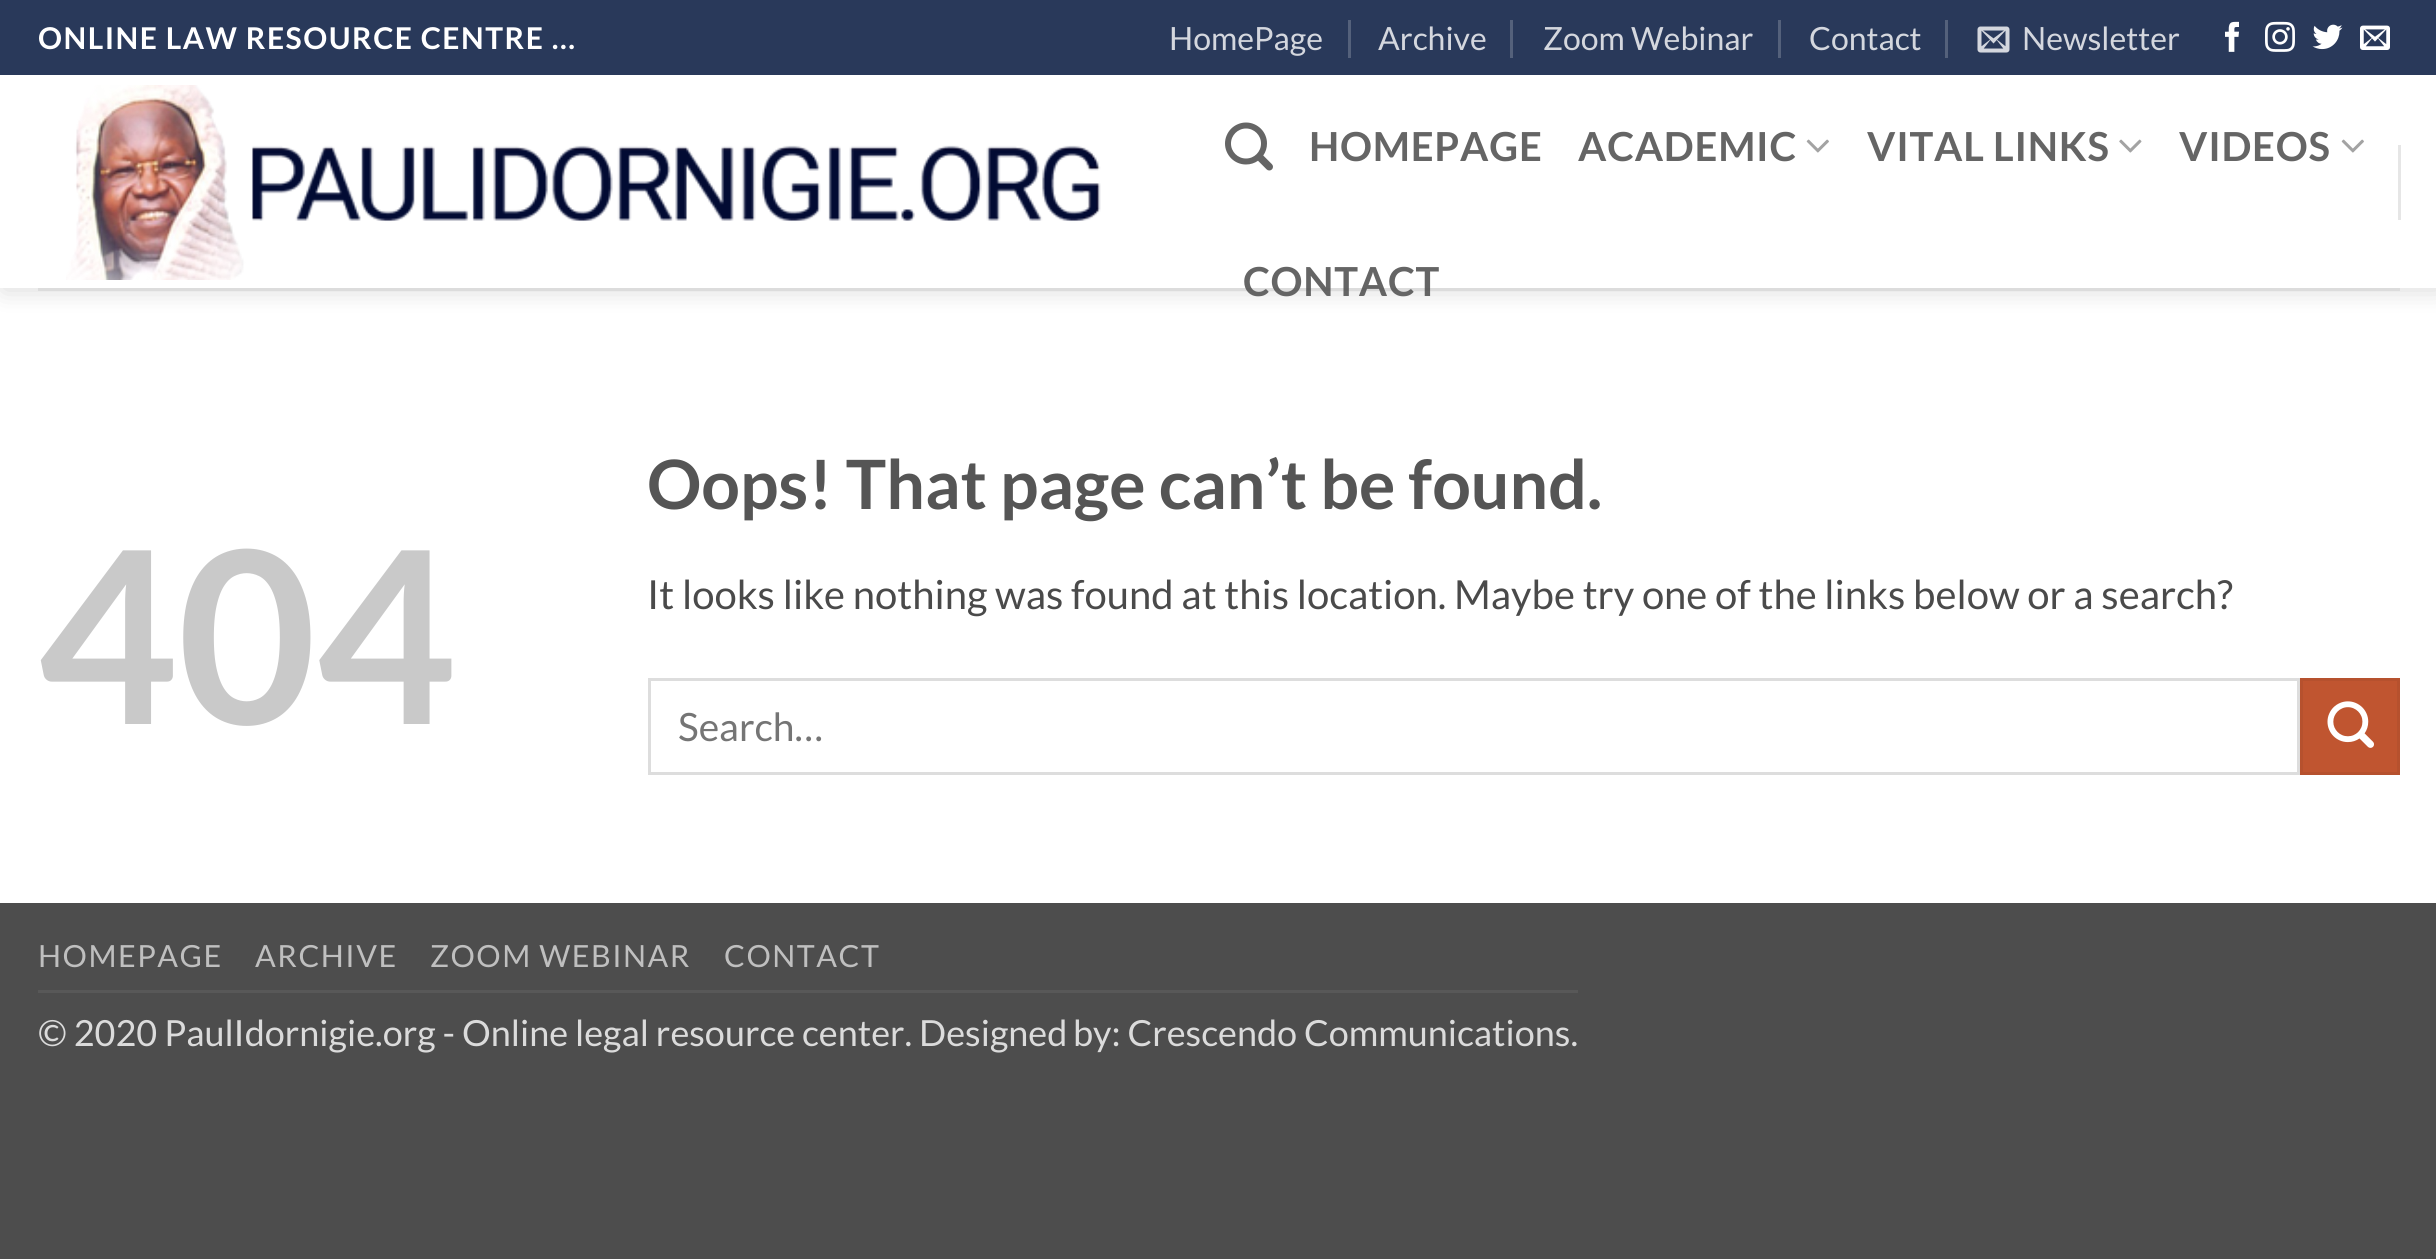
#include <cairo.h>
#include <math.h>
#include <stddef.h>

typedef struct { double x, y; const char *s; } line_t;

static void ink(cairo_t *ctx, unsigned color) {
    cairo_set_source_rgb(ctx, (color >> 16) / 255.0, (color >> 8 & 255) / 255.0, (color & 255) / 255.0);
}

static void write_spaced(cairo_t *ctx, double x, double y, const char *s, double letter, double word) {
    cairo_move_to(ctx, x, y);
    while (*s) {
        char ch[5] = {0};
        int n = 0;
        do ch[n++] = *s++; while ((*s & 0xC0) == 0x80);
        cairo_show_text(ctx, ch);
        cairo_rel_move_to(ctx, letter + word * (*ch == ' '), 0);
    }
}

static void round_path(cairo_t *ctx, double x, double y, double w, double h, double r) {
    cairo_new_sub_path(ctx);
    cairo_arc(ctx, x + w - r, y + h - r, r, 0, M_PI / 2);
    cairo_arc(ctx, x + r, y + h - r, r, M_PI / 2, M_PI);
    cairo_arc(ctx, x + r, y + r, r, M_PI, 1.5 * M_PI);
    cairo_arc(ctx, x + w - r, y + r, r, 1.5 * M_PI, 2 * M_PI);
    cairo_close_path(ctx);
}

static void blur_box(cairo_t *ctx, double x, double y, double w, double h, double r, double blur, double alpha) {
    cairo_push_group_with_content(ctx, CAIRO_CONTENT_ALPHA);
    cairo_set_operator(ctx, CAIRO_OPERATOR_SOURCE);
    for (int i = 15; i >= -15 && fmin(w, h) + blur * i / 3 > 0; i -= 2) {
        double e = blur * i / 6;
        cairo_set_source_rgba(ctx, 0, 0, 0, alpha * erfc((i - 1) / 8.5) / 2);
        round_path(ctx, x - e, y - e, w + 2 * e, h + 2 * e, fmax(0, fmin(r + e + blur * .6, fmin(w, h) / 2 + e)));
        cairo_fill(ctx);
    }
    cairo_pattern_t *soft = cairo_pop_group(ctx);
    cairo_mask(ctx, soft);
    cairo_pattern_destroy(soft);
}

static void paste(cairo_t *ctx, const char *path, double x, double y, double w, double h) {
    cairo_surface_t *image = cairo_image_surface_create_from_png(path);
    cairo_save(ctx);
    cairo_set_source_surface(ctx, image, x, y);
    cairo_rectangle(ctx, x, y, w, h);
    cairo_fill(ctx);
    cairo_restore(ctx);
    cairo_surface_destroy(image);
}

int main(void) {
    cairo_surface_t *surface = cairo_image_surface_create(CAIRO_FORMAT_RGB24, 2436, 1259);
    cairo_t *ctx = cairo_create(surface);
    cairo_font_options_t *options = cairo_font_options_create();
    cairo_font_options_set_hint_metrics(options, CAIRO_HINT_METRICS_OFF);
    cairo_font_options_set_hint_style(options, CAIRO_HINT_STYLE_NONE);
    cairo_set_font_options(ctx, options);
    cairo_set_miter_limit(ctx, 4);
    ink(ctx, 0x4D4D4D);
    cairo_paint(ctx);
    ink(ctx, 0xFFFFFF);
    cairo_rectangle(ctx, 0, 75, 2436, 828);
    cairo_fill(ctx);
    cairo_save(ctx);
    cairo_set_fill_rule(ctx, CAIRO_FILL_RULE_EVEN_ODD);
    cairo_new_path(ctx);
    cairo_move_to(ctx, 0, 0);
    cairo_line_to(ctx, 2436, 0);
    cairo_line_to(ctx, 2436, 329);
    cairo_line_to(ctx, 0, 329);
    cairo_close_path(ctx);
    cairo_move_to(ctx, 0, 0);
    cairo_line_to(ctx, 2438, 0);
    cairo_line_to(ctx, 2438, 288);
    cairo_line_to(ctx, 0, 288);
    cairo_close_path(ctx);
    cairo_clip(ctx);
    ink(ctx, 0x000000);
    blur_box(ctx, 3, 3, 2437, 287, 0, 12.5, 0.15);
    cairo_restore(ctx);
    ink(ctx, 0x29395A);
    cairo_rectangle(ctx, 0, 0, 2436, 75);
    cairo_fill(ctx);
    cairo_select_font_face(ctx, "Lato", CAIRO_FONT_SLANT_NORMAL, CAIRO_FONT_WEIGHT_BOLD);
    cairo_set_font_size(ctx, 30);
    ink(ctx, 0xFFFFFF);
    write_spaced(ctx, 38, 49, "ONLINE LAW RESOURCE CENTRE ...", 1.5, 0);
    cairo_select_font_face(ctx, "Lato", CAIRO_FONT_SLANT_NORMAL, CAIRO_FONT_WEIGHT_NORMAL);
    cairo_set_font_size(ctx, 32);
    ink(ctx, 0xD4D7DE);
    cairo_move_to(ctx, 1169, 50);
    cairo_show_text(ctx, "HomePage");
    ink(ctx, 0x54617B);
    cairo_rectangle(ctx, 1348, 20, 3, 38);
    cairo_fill(ctx);
    ink(ctx, 0xD4D7DE);
    cairo_move_to(ctx, 1378, 50);
    cairo_show_text(ctx, "Archive");
    ink(ctx, 0x54617B);
    cairo_rectangle(ctx, 1510, 20, 3, 38);
    cairo_fill(ctx);
    ink(ctx, 0xD4D7DE);
    cairo_move_to(ctx, 1543, 50);
    cairo_show_text(ctx, "Zoom Webinar");
    ink(ctx, 0x54617B);
    cairo_rectangle(ctx, 1778, 20, 3, 38);
    cairo_fill(ctx);
    ink(ctx, 0xD4D7DE);
    cairo_move_to(ctx, 1809, 50);
    cairo_show_text(ctx, "Contact");
    ink(ctx, 0x54617B);
    cairo_rectangle(ctx, 1945, 20, 3, 38);
    cairo_fill(ctx);
    paste(ctx, "media/1.png", 1977, 26, 33, 27);
    ink(ctx, 0xD4D7DE);
    cairo_move_to(ctx, 2022, 50);
    cairo_show_text(ctx, "Newsletter");
    paste(ctx, "media/2.png", 2225, 21, 14, 31);
    paste(ctx, "media/3.png", 2265, 21, 30, 31);
    paste(ctx, "media/4.png", 2312, 24, 31, 26);
    paste(ctx, "media/5.png", 2360, 25, 30, 25);
    paste(ctx, "media/6.png", 66, 85, 1035, 195);
    paste(ctx, "media/7.png", 1225, 122, 48, 49);
    cairo_select_font_face(ctx, "Lato", CAIRO_FONT_SLANT_NORMAL, CAIRO_FONT_WEIGHT_BOLD);
    cairo_set_font_size(ctx, 40);
    ink(ctx, 0x656565);
    write_spaced(ctx, 1309, 161, "HOMEPAGE", 0.75, 0);
    write_spaced(ctx, 1578, 161, "ACADEMIC", 0.75, 0);
    paste(ctx, "media/8.png", 1806, 139, 23, 14);
    write_spaced(ctx, 1867, 161, "VITAL LINKS", 0.75, 0);
    paste(ctx, "media/9.png", 2119, 139, 23, 14);
    write_spaced(ctx, 2179, 161, "VIDEOS", 0.75, 0);
    paste(ctx, "media/8.png", 2341, 139, 23, 14);
    cairo_set_source_rgba(ctx, 1, 1, 1, 0.9);
    cairo_rectangle(ctx, 0, 287, 2436, 1);
    cairo_fill(ctx);
    ink(ctx, 0x656565);
    write_spaced(ctx, 1243, 296, "CONTACT", 0.75, 0);
    ink(ctx, 0xE6E6E6);
    cairo_rectangle(ctx, 2398, 145, 3, 75);
    cairo_fill(ctx);
    cairo_set_source_rgba(ctx, 0.29, 0.29, 0.29, 0.1);
    cairo_rectangle(ctx, 38, 288, 2362, 3);
    cairo_fill(ctx);
    cairo_set_font_size(ctx, 240);
    ink(ctx, 0xC9C9C9);
    cairo_move_to(ctx, 38, 724);
    cairo_show_text(ctx, "404");
    cairo_set_font_size(ctx, 68);
    ink(ctx, 0x555555);
    cairo_move_to(ctx, 647, 509);
    cairo_show_text(ctx, "Oops! That page can’t be found.");
    cairo_select_font_face(ctx, "Lato", CAIRO_FONT_SLANT_NORMAL, CAIRO_FONT_WEIGHT_NORMAL);
    cairo_set_font_size(ctx, 40);
    ink(ctx, 0x4A4A4A);
    cairo_move_to(ctx, 647, 609);
    cairo_show_text(ctx, "It looks like nothing was found at this location. Maybe try one of the links below or a search?");
    cairo_rectangle(ctx, 649.5, 679.5, 1649, 94);
    ink(ctx, 0xDDDDDD);
    cairo_set_line_width(ctx, 3);
    cairo_stroke(ctx);
    cairo_set_font_size(ctx, 39);
    ink(ctx, 0x757575);
    cairo_move_to(ctx, 678, 741);
    cairo_show_text(ctx, "Search…");
    ink(ctx, 0xC05530);
    cairo_rectangle(ctx, 2301.5, 679.5, 97, 94);
    cairo_fill_preserve(ctx);
    ink(ctx, 0xB6512E);
    cairo_stroke(ctx);
    paste(ctx, "media/10.png", 2327, 701, 47, 47);
    ink(ctx, 0x585858);
    cairo_rectangle(ctx, 38, 990, 1540, 3);
    cairo_fill(ctx);
    cairo_set_font_size(ctx, 30.5);
    ink(ctx, 0xBFBFBF);
    {
        static const line_t items[] = {
            {38, 967, "HOMEPAGE"},
            {255, 967, "ARCHIVE"},
            {430, 967, "ZOOM WEBINAR"},
            {724, 967, "CONTACT"},
        };
        for (size_t i = 0; i < sizeof items / sizeof *items; i++) {
            write_spaced(ctx, items[i].x, items[i].y, items[i].s, 1.5, 0);
        }
    }
    cairo_set_font_size(ctx, 36);
    ink(ctx, 0xDBDBDB);
    cairo_move_to(ctx, 38, 1046);
    cairo_show_text(ctx, "© 2020 PaulIdornigie.org - Online legal resource center. Designed");
    cairo_move_to(ctx, 1073, 1046);
    cairo_show_text(ctx, "by: Crescendo Communications.");
    cairo_surface_write_to_png(surface, "image.png");
    cairo_font_options_destroy(options);
    cairo_destroy(ctx);
    cairo_surface_destroy(surface);
    return 0;
}
